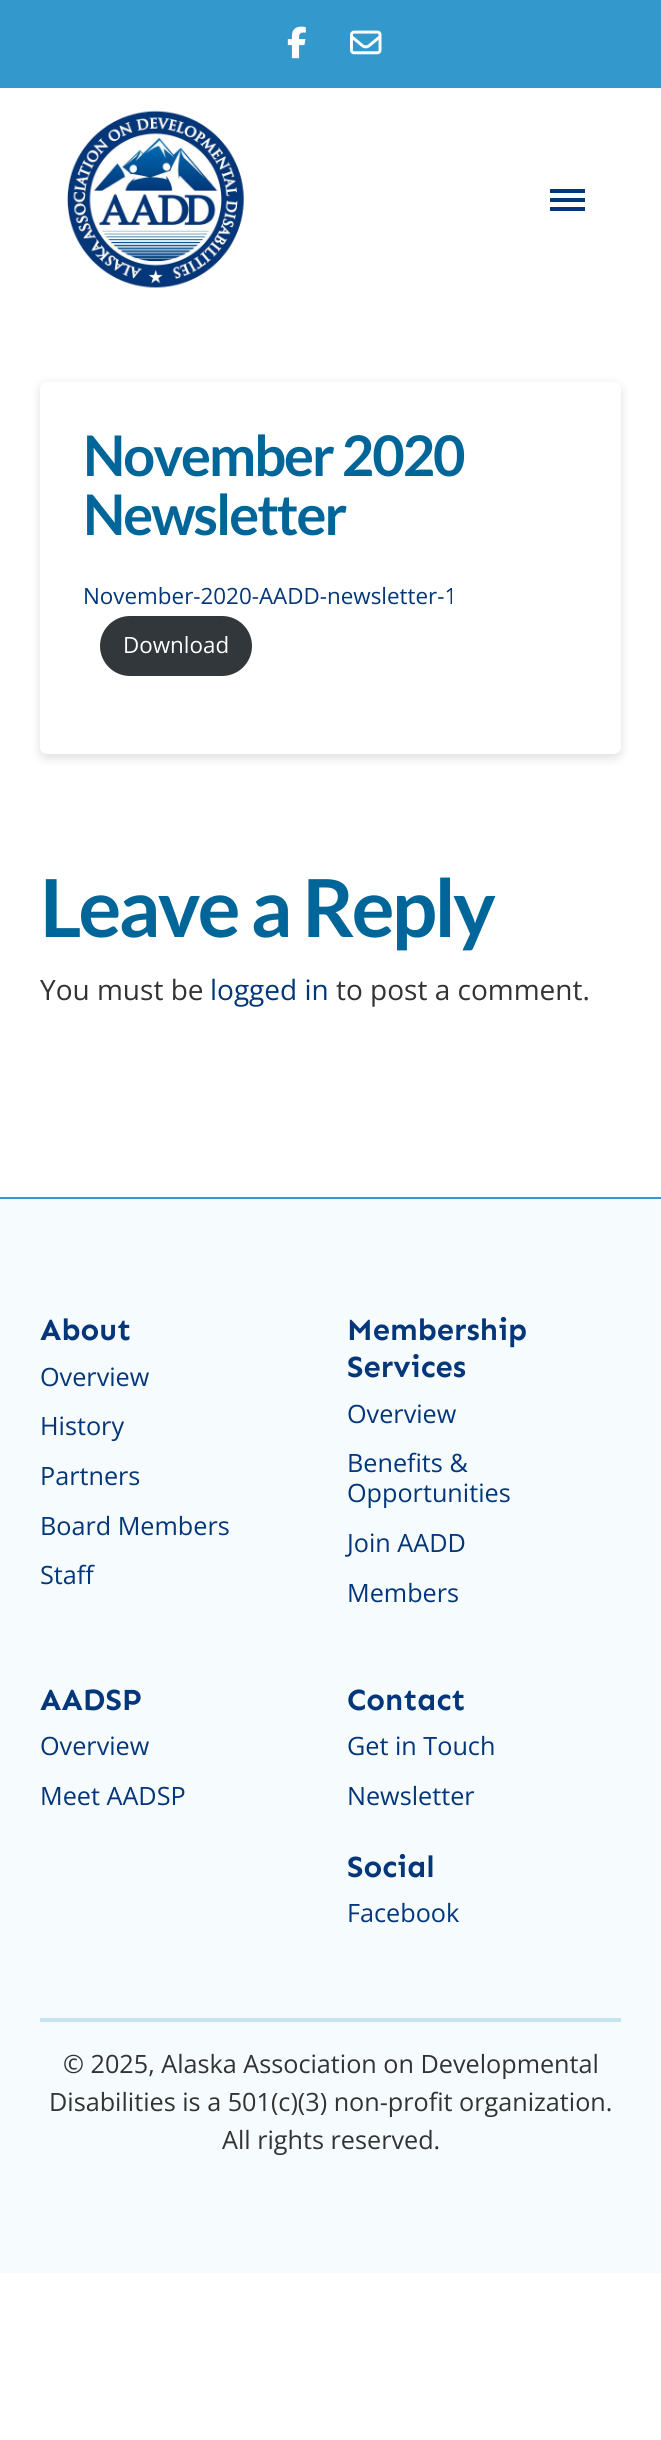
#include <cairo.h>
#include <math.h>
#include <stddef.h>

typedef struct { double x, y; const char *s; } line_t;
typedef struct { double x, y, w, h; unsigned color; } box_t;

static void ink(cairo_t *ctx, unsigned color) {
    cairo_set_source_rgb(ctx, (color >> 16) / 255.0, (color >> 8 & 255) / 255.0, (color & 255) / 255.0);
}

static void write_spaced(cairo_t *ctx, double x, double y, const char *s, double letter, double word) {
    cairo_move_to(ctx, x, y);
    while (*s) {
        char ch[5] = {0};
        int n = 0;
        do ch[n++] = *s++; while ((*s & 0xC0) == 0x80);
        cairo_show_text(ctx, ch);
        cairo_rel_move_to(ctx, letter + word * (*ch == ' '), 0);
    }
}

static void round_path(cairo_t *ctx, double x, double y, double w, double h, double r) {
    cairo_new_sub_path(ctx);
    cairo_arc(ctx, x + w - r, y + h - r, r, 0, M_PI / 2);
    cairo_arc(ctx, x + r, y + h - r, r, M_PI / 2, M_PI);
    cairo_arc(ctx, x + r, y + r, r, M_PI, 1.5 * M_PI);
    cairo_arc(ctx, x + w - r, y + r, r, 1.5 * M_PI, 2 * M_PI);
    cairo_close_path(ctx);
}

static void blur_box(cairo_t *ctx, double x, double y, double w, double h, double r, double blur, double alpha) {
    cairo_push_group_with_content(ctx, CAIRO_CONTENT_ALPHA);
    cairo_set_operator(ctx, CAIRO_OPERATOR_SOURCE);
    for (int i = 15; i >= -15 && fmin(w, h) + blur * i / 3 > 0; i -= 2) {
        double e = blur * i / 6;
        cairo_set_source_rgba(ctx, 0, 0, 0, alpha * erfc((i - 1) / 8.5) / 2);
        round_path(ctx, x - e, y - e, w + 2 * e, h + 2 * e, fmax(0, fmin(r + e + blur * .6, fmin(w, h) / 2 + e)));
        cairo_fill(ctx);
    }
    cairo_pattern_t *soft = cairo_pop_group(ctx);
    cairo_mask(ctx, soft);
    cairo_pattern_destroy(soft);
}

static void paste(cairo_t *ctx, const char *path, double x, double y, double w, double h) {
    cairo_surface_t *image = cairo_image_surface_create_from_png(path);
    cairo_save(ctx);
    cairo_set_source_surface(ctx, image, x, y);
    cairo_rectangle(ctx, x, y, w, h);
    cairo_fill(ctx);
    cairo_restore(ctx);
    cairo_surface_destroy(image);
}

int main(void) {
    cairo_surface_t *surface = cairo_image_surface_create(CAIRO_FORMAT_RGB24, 661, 2440);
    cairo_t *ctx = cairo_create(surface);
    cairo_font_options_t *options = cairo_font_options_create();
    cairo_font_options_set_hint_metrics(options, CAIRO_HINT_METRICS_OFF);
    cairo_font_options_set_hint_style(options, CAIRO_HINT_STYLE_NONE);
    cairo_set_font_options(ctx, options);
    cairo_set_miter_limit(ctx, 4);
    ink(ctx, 0xFFFFFF);
    cairo_paint(ctx);
    ink(ctx, 0x3399CC);
    cairo_rectangle(ctx, 0, 0, 661, 88);
    cairo_fill(ctx);
    paste(ctx, "media/1.png", 287, 26, 19, 33);
    paste(ctx, "media/2.png", 350, 30, 32, 25);
    paste(ctx, "media/3.png", 67, 110, 177, 178);
    {
        static const box_t items[] = {
            {550, 189, 35, 4, 0x04367A},
            {550, 198, 35, 4, 0x04367A},
            {550, 207, 35, 4, 0x04367A},
        };
        for (size_t i = 0; i < sizeof items / sizeof *items; i++) {
            ink(ctx, items[i].color);
            cairo_rectangle(ctx, items[i].x, items[i].y, items[i].w, items[i].h);
            cairo_fill(ctx);
        }
    }
    ink(ctx, 0x000000);
    blur_box(ctx, 40, 385, 581, 373, 7, 5, 0.13);
    ink(ctx, 0xFFFFFF);
    round_path(ctx, 40, 382, 581, 372, 7);
    cairo_fill(ctx);
    cairo_select_font_face(ctx, "Lato", CAIRO_FONT_SLANT_NORMAL, CAIRO_FONT_WEIGHT_BOLD);
    cairo_set_font_size(ctx, 56);
    ink(ctx, 0x006699);
    write_spaced(ctx, 83, 476, "November 2020", -2, 0);
    write_spaced(ctx, 83, 535, "Newsletter", -2, 0);
    cairo_select_font_face(ctx, "Open Sans", CAIRO_FONT_SLANT_NORMAL, CAIRO_FONT_WEIGHT_NORMAL);
    cairo_set_font_size(ctx, 22.4);
    ink(ctx, 0x04367A);
    cairo_move_to(ctx, 83, 604);
    cairo_show_text(ctx, "November-2020-AADD-newsletter-1");
    ink(ctx, 0x32373C);
    round_path(ctx, 100, 616, 152, 60, 30);
    cairo_fill(ctx);
    ink(ctx, 0xFFFFFF);
    cairo_move_to(ctx, 123, 653);
    cairo_show_text(ctx, "Download");
    cairo_select_font_face(ctx, "Lato", CAIRO_FONT_SLANT_NORMAL, CAIRO_FONT_WEIGHT_BOLD);
    cairo_set_font_size(ctx, 80);
    ink(ctx, 0x006699);
    write_spaced(ctx, 40, 937, "Leave a Reply", -2.75, 0);
    cairo_select_font_face(ctx, "Open Sans", CAIRO_FONT_SLANT_NORMAL, CAIRO_FONT_WEIGHT_NORMAL);
    cairo_set_font_size(ctx, 28);
    ink(ctx, 0x333333);
    cairo_move_to(ctx, 40, 1000);
    cairo_show_text(ctx, "You must be");
    ink(ctx, 0x04367A);
    cairo_move_to(ctx, 210, 1000);
    cairo_show_text(ctx, "logged in");
    ink(ctx, 0x333333);
    cairo_move_to(ctx, 336, 1000);
    cairo_show_text(ctx, "to post a comment.");
    ink(ctx, 0xF6FBFD);
    cairo_rectangle(ctx, 0, 1199, 661, 1074);
    cairo_fill(ctx);
    ink(ctx, 0x3399CC);
    cairo_rectangle(ctx, 0, 1197, 661, 2);
    cairo_fill(ctx);
    cairo_select_font_face(ctx, "Sen", CAIRO_FONT_SLANT_NORMAL, CAIRO_FONT_WEIGHT_BOLD);
    cairo_set_font_size(ctx, 30.75);
    ink(ctx, 0x04367A);
    cairo_move_to(ctx, 40, 1340);
    cairo_show_text(ctx, "About");
    cairo_select_font_face(ctx, "Open Sans", CAIRO_FONT_SLANT_NORMAL, CAIRO_FONT_WEIGHT_NORMAL);
    cairo_set_font_size(ctx, 25.2);
    {
        static const line_t items[] = {
            {40, 1386, "Overview"},
            {40, 1435, "History"},
            {40, 1485, "Partners"},
            {40, 1535, "Board Members"},
            {40, 1584, "Staff"},
        };
        for (size_t i = 0; i < sizeof items / sizeof *items; i++) {
            cairo_move_to(ctx, items[i].x, items[i].y);
            cairo_show_text(ctx, items[i].s);
        }
    }
    cairo_select_font_face(ctx, "Sen", CAIRO_FONT_SLANT_NORMAL, CAIRO_FONT_WEIGHT_BOLD);
    cairo_set_font_size(ctx, 30.75);
    cairo_move_to(ctx, 347, 1340);
    cairo_show_text(ctx, "Membership");
    cairo_move_to(ctx, 347, 1377);
    cairo_show_text(ctx, "Services");
    cairo_select_font_face(ctx, "Open Sans", CAIRO_FONT_SLANT_NORMAL, CAIRO_FONT_WEIGHT_NORMAL);
    cairo_set_font_size(ctx, 25.2);
    {
        static const line_t items[] = {
            {347, 1423, "Overview"},
            {347, 1472, "Benefits &"},
            {347, 1502, "Opportunities"},
            {347, 1552, "Join AADD"},
            {347, 1602, "Members"},
        };
        for (size_t i = 0; i < sizeof items / sizeof *items; i++) {
            cairo_move_to(ctx, items[i].x, items[i].y);
            cairo_show_text(ctx, items[i].s);
        }
    }
    cairo_select_font_face(ctx, "Sen", CAIRO_FONT_SLANT_NORMAL, CAIRO_FONT_WEIGHT_BOLD);
    cairo_set_font_size(ctx, 30.75);
    cairo_move_to(ctx, 40, 1710);
    cairo_show_text(ctx, "AADSP");
    cairo_select_font_face(ctx, "Open Sans", CAIRO_FONT_SLANT_NORMAL, CAIRO_FONT_WEIGHT_NORMAL);
    cairo_set_font_size(ctx, 25.2);
    cairo_move_to(ctx, 40, 1755);
    cairo_show_text(ctx, "Overview");
    cairo_move_to(ctx, 40, 1805);
    cairo_show_text(ctx, "Meet AADSP");
    cairo_select_font_face(ctx, "Sen", CAIRO_FONT_SLANT_NORMAL, CAIRO_FONT_WEIGHT_BOLD);
    cairo_set_font_size(ctx, 30.75);
    cairo_move_to(ctx, 347, 1710);
    cairo_show_text(ctx, "Contact");
    cairo_select_font_face(ctx, "Open Sans", CAIRO_FONT_SLANT_NORMAL, CAIRO_FONT_WEIGHT_NORMAL);
    cairo_set_font_size(ctx, 25.2);
    cairo_move_to(ctx, 347, 1755);
    cairo_show_text(ctx, "Get in Touch");
    cairo_move_to(ctx, 347, 1805);
    cairo_show_text(ctx, "Newsletter");
    cairo_select_font_face(ctx, "Sen", CAIRO_FONT_SLANT_NORMAL, CAIRO_FONT_WEIGHT_BOLD);
    cairo_set_font_size(ctx, 30.75);
    cairo_move_to(ctx, 347, 1877);
    cairo_show_text(ctx, "Social");
    cairo_select_font_face(ctx, "Open Sans", CAIRO_FONT_SLANT_NORMAL, CAIRO_FONT_WEIGHT_NORMAL);
    cairo_set_font_size(ctx, 25.2);
    cairo_move_to(ctx, 347, 1922);
    cairo_show_text(ctx, "Facebook");
    ink(ctx, 0xC5E3F1);
    cairo_rectangle(ctx, 40, 2018, 581, 4);
    cairo_fill(ctx);
    ink(ctx, 0x333333);
    {
        static const line_t items[] = {
            {63, 2073, "© 2025, Alaska Association on Developmental"},
            {49, 2111, "Disabilities is a 501(c)(3) non-profit organization."},
            {222, 2149, "All rights reserved."},
        };
        for (size_t i = 0; i < sizeof items / sizeof *items; i++) {
            cairo_move_to(ctx, items[i].x, items[i].y);
            cairo_show_text(ctx, items[i].s);
        }
    }
    cairo_surface_write_to_png(surface, "image.png");
    cairo_font_options_destroy(options);
    cairo_destroy(ctx);
    cairo_surface_destroy(surface);
    return 0;
}
